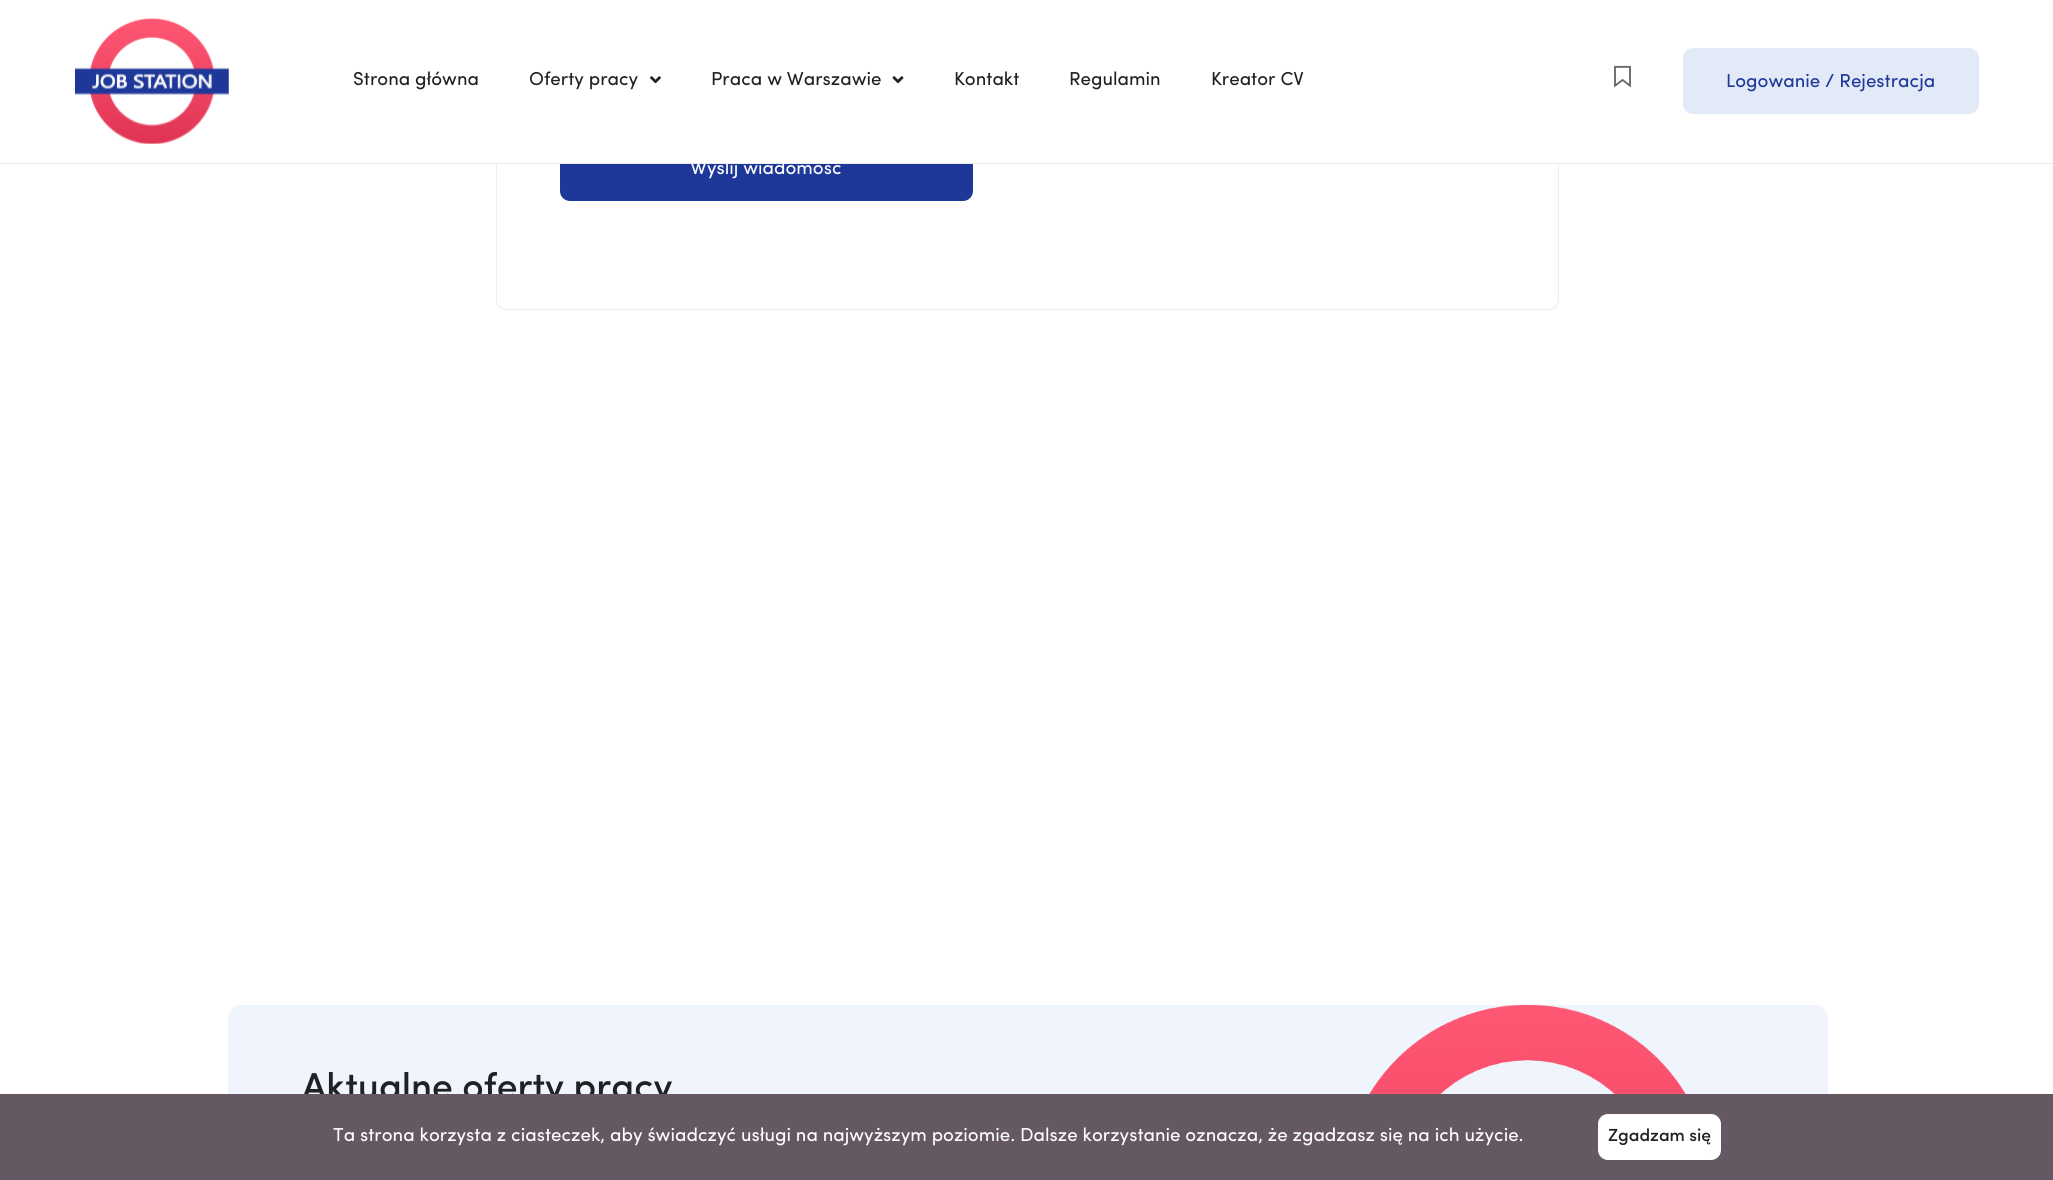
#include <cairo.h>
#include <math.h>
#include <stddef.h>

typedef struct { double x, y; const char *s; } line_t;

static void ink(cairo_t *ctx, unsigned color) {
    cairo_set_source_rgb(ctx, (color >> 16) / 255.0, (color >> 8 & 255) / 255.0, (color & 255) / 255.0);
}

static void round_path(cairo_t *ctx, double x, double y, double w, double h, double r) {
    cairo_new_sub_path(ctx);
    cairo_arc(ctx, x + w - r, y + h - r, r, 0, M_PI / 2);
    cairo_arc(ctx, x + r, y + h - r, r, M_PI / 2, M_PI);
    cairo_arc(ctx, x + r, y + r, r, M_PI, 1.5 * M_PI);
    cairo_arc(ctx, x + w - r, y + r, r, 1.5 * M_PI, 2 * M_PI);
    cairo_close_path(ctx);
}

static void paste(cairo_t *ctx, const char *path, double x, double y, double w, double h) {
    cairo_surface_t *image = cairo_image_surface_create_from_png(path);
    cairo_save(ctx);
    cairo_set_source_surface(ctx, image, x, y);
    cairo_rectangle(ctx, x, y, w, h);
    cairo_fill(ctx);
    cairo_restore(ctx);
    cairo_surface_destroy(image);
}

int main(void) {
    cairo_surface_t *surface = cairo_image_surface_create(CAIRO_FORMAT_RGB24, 2053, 1180);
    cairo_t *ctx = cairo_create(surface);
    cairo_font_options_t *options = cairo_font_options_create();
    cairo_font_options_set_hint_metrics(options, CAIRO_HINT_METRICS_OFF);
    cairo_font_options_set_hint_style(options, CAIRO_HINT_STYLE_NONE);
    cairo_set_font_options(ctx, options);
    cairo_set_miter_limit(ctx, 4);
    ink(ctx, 0xFFFFFF);
    cairo_paint(ctx);
    round_path(ctx, 496.5, -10.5, 1062, 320, 9.5);
    ink(ctx, 0xECEDF2);
    cairo_set_line_width(ctx, 1);
    cairo_stroke(ctx);
    ink(ctx, 0x1E3899);
    round_path(ctx, 560, 135, 413, 66, 10);
    cairo_fill(ctx);
    ink(ctx, 0xFFFFFF);
    cairo_rectangle(ctx, 496, 0, 1063, 163);
    cairo_fill(ctx);
    cairo_select_font_face(ctx, "Sofia", CAIRO_FONT_SLANT_NORMAL, CAIRO_FONT_WEIGHT_NORMAL);
    cairo_set_font_size(ctx, 18.75);
    cairo_move_to(ctx, 690, 174);
    cairo_show_text(ctx, "Wyślij wiadomość");
    ink(ctx, 0xECEDF2);
    cairo_rectangle(ctx, 0, 163, 2053, 1);
    cairo_fill(ctx);
    paste(ctx, "media/1.png", 75, 18, 154, 126);
    ink(ctx, 0x202124);
    cairo_move_to(ctx, 353, 85);
    cairo_show_text(ctx, "Strona główna");
    cairo_move_to(ctx, 529, 85);
    cairo_show_text(ctx, "Oferty pracy");
    paste(ctx, "media/2.png", 650, 76, 11, 8);
    cairo_move_to(ctx, 711, 85);
    cairo_show_text(ctx, "Praca w Warszawie");
    paste(ctx, "media/3.png", 892, 76, 12, 8);
    {
        static const line_t items[] = {
            {954, 85, "Kontakt"},
            {1069, 85, "Regulamin"},
            {1211, 85, "Kreator CV"},
        };
        for (size_t i = 0; i < sizeof items / sizeof *items; i++) {
            cairo_move_to(ctx, items[i].x, items[i].y);
            cairo_show_text(ctx, items[i].s);
        }
    }
    paste(ctx, "media/4.png", 1614, 65, 17, 23);
    ink(ctx, 0xE2EAF8);
    round_path(ctx, 1683, 48, 296, 66, 10);
    cairo_fill(ctx);
    ink(ctx, 0x1E3899);
    cairo_move_to(ctx, 1726, 87);
    cairo_show_text(ctx, "Logowanie / Rejestracja");
    ink(ctx, 0xF0F5FD);
    round_path(ctx, 228, 1005, 1600, 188, 13);
    cairo_fill(ctx);
    cairo_select_font_face(ctx, "Sofia Medium", CAIRO_FONT_SLANT_NORMAL, CAIRO_FONT_WEIGHT_NORMAL);
    cairo_set_font_size(ctx, 37.5);
    ink(ctx, 0x202124);
    cairo_move_to(ctx, 302, 1099);
    cairo_show_text(ctx, "Aktualne oferty pracy");
    paste(ctx, "media/5.png", 1369, 1004, 317, 90);
    ink(ctx, 0x645862);
    cairo_rectangle(ctx, 0, 1094, 2053, 86);
    cairo_fill(ctx);
    cairo_select_font_face(ctx, "Sofia", CAIRO_FONT_SLANT_NORMAL, CAIRO_FONT_WEIGHT_NORMAL);
    cairo_set_font_size(ctx, 18.75);
    ink(ctx, 0xFFFFFF);
    cairo_move_to(ctx, 333, 1141);
    cairo_show_text(ctx, "Ta strona korzysta z ciasteczek, aby świadczyć usługi na najwyższym poziomie. Dalsze korzystanie oznacza, że zgadzasz się na ich użycie.");
    round_path(ctx, 1598, 1114, 123, 46, 10);
    cairo_fill(ctx);
    cairo_select_font_face(ctx, "Sofia Medium", CAIRO_FONT_SLANT_NORMAL, CAIRO_FONT_WEIGHT_NORMAL);
    cairo_set_font_size(ctx, 17.5);
    ink(ctx, 0x202124);
    cairo_move_to(ctx, 1608, 1141);
    cairo_show_text(ctx, "Zgadzam się");
    cairo_surface_write_to_png(surface, "image.png");
    cairo_font_options_destroy(options);
    cairo_destroy(ctx);
    cairo_surface_destroy(surface);
    return 0;
}
